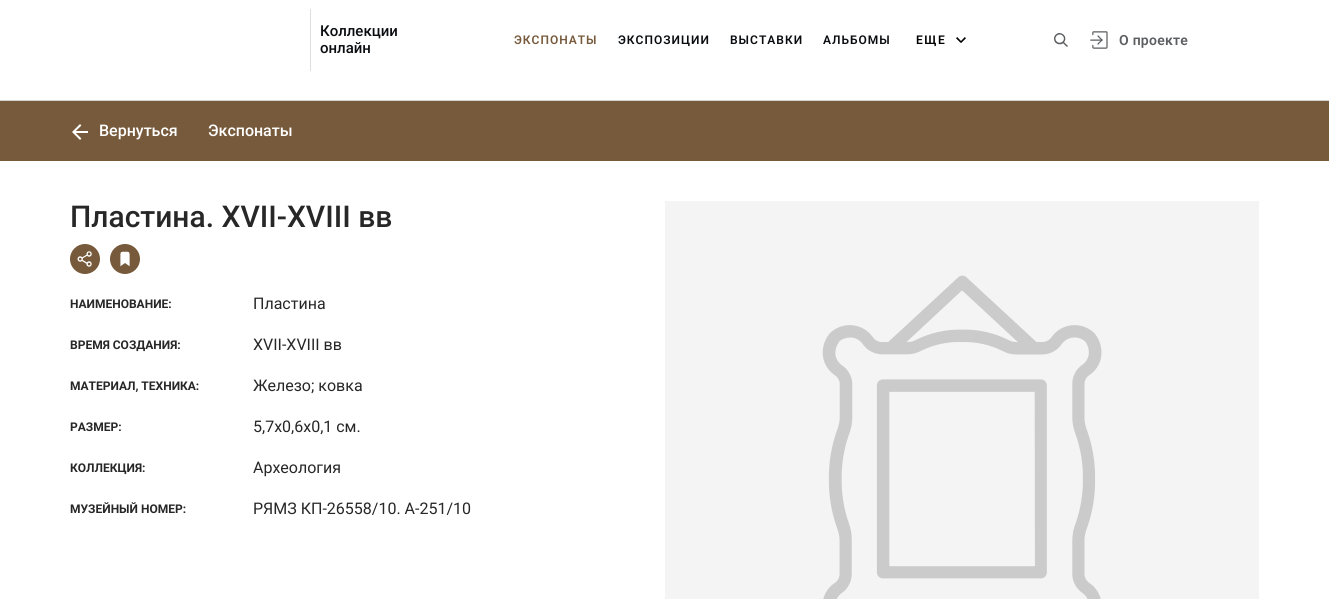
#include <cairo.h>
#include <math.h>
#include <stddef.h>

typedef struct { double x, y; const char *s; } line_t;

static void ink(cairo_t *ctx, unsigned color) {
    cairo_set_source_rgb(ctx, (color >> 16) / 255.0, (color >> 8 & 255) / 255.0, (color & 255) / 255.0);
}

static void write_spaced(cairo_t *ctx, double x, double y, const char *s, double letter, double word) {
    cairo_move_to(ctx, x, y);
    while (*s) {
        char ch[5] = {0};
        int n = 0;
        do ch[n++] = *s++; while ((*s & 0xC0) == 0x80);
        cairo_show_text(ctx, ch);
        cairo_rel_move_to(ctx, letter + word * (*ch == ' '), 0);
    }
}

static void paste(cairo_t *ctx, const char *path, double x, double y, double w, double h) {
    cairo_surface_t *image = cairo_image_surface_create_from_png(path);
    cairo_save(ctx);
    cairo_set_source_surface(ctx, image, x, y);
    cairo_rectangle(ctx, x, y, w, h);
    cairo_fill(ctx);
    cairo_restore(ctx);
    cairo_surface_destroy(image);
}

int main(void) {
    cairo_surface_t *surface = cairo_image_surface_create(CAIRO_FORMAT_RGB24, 1329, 599);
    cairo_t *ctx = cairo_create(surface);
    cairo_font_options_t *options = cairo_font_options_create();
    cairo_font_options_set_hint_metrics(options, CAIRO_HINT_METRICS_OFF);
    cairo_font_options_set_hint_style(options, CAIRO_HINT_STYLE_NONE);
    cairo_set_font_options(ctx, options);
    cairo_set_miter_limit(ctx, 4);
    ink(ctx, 0xFFFFFF);
    cairo_paint(ctx);
    ink(ctx, 0xD3D3D3);
    cairo_rectangle(ctx, 0, 100, 1329, 1);
    cairo_fill(ctx);
    ink(ctx, 0xDEDEDE);
    cairo_rectangle(ctx, 310, 9, 1, 62);
    cairo_fill(ctx);
    cairo_select_font_face(ctx, "Roboto Medium", CAIRO_FONT_SLANT_NORMAL, CAIRO_FONT_WEIGHT_NORMAL);
    cairo_set_font_size(ctx, 15);
    ink(ctx, 0x0A0D10);
    cairo_move_to(ctx, 320, 36);
    cairo_show_text(ctx, "Коллекции");
    cairo_move_to(ctx, 320, 53);
    cairo_show_text(ctx, "онлайн");
    cairo_select_font_face(ctx, "Roboto SemiBold", CAIRO_FONT_SLANT_NORMAL, CAIRO_FONT_WEIGHT_NORMAL);
    cairo_set_font_size(ctx, 12);
    ink(ctx, 0x775A3C);
    write_spaced(ctx, 514, 44, "ЭКСПОНАТЫ", 1, 0);
    ink(ctx, 0x0A0D10);
    {
        static const line_t items[] = {
            {618, 44, "ЭКСПОЗИЦИИ"},
            {730, 44, "ВЫСТАВКИ"},
            {823, 44, "АЛЬБОМЫ"},
        };
        for (size_t i = 0; i < sizeof items / sizeof *items; i++) {
            write_spaced(ctx, items[i].x, items[i].y, items[i].s, 1, 0);
        }
    }
    ink(ctx, 0x000000);
    write_spaced(ctx, 916, 44, "ЕЩЕ", 1.5, 0);
    paste(ctx, "media/1.png", 956, 37, 10, 6);
    paste(ctx, "media/2.png", 1054, 33, 14, 14);
    paste(ctx, "media/3.png", 1090, 31, 18, 18);
    cairo_set_font_size(ctx, 14);
    ink(ctx, 0x5C5F62);
    write_spaced(ctx, 1119, 45, "О проекте", 0.25, 0);
    ink(ctx, 0x775A3C);
    cairo_rectangle(ctx, 0, 101, 1329, 60);
    cairo_fill(ctx);
    paste(ctx, "media/4.png", 72, 124, 16, 16);
    cairo_select_font_face(ctx, "Roboto Medium", CAIRO_FONT_SLANT_NORMAL, CAIRO_FONT_WEIGHT_NORMAL);
    cairo_set_font_size(ctx, 16);
    ink(ctx, 0xFFFFFF);
    cairo_move_to(ctx, 99, 136);
    cairo_show_text(ctx, "Вернуться");
    cairo_move_to(ctx, 208, 136);
    cairo_show_text(ctx, "Экспонаты");
    cairo_set_font_size(ctx, 30);
    ink(ctx, 0x272727);
    cairo_move_to(ctx, 70, 227);
    cairo_show_text(ctx, "Пластина. XVII-XVIII вв");
    ink(ctx, 0x775A3C);
    cairo_new_path(ctx);
    cairo_arc(ctx, 85, 259, 15, 0, 2 * M_PI);
    cairo_fill(ctx);
    paste(ctx, "media/5.png", 77, 251, 15, 16);
    cairo_arc(ctx, 125, 259, 15, 0, 2 * M_PI);
    cairo_fill(ctx);
    paste(ctx, "media/6.png", 120, 251, 10, 16);
    ink(ctx, 0xF4F4F4);
    cairo_rectangle(ctx, 665, 201, 594, 398);
    cairo_fill(ctx);
    paste(ctx, "media/7.png", 822, 275, 280, 324);
    cairo_select_font_face(ctx, "Roboto", CAIRO_FONT_SLANT_NORMAL, CAIRO_FONT_WEIGHT_BOLD);
    cairo_set_font_size(ctx, 12);
    ink(ctx, 0x272727);
    cairo_move_to(ctx, 70, 308);
    cairo_show_text(ctx, "НАИМЕНОВАНИЕ:");
    cairo_select_font_face(ctx, "Roboto", CAIRO_FONT_SLANT_NORMAL, CAIRO_FONT_WEIGHT_NORMAL);
    cairo_set_font_size(ctx, 16);
    cairo_move_to(ctx, 253, 309);
    cairo_show_text(ctx, "Пластина");
    cairo_select_font_face(ctx, "Roboto", CAIRO_FONT_SLANT_NORMAL, CAIRO_FONT_WEIGHT_BOLD);
    cairo_set_font_size(ctx, 12);
    cairo_move_to(ctx, 70, 349);
    cairo_show_text(ctx, "ВРЕМЯ СОЗДАНИЯ:");
    cairo_select_font_face(ctx, "Roboto", CAIRO_FONT_SLANT_NORMAL, CAIRO_FONT_WEIGHT_NORMAL);
    cairo_set_font_size(ctx, 16);
    cairo_move_to(ctx, 253, 350);
    cairo_show_text(ctx, "XVII-XVIII вв");
    cairo_select_font_face(ctx, "Roboto", CAIRO_FONT_SLANT_NORMAL, CAIRO_FONT_WEIGHT_BOLD);
    cairo_set_font_size(ctx, 12);
    cairo_move_to(ctx, 70, 390);
    cairo_show_text(ctx, "МАТЕРИАЛ, ТЕХНИКА:");
    cairo_select_font_face(ctx, "Roboto", CAIRO_FONT_SLANT_NORMAL, CAIRO_FONT_WEIGHT_NORMAL);
    cairo_set_font_size(ctx, 16);
    cairo_move_to(ctx, 253, 391);
    cairo_show_text(ctx, "Железо; ковка");
    cairo_select_font_face(ctx, "Roboto", CAIRO_FONT_SLANT_NORMAL, CAIRO_FONT_WEIGHT_BOLD);
    cairo_set_font_size(ctx, 12);
    cairo_move_to(ctx, 70, 431);
    cairo_show_text(ctx, "РАЗМЕР:");
    cairo_select_font_face(ctx, "Roboto", CAIRO_FONT_SLANT_NORMAL, CAIRO_FONT_WEIGHT_NORMAL);
    cairo_set_font_size(ctx, 16);
    cairo_move_to(ctx, 253, 432);
    cairo_show_text(ctx, "5,7х0,6х0,1 см.");
    cairo_select_font_face(ctx, "Roboto", CAIRO_FONT_SLANT_NORMAL, CAIRO_FONT_WEIGHT_BOLD);
    cairo_set_font_size(ctx, 12);
    cairo_move_to(ctx, 70, 472);
    cairo_show_text(ctx, "КОЛЛЕКЦИЯ:");
    cairo_select_font_face(ctx, "Roboto", CAIRO_FONT_SLANT_NORMAL, CAIRO_FONT_WEIGHT_NORMAL);
    cairo_set_font_size(ctx, 16);
    cairo_move_to(ctx, 253, 473);
    cairo_show_text(ctx, "Археология");
    cairo_select_font_face(ctx, "Roboto", CAIRO_FONT_SLANT_NORMAL, CAIRO_FONT_WEIGHT_BOLD);
    cairo_set_font_size(ctx, 12);
    cairo_move_to(ctx, 70, 513);
    cairo_show_text(ctx, "МУЗЕЙНЫЙ НОМЕР:");
    cairo_select_font_face(ctx, "Roboto", CAIRO_FONT_SLANT_NORMAL, CAIRO_FONT_WEIGHT_NORMAL);
    cairo_set_font_size(ctx, 16);
    cairo_move_to(ctx, 253, 514);
    cairo_show_text(ctx, "РЯМЗ КП-26558/10. А-251/10");
    cairo_surface_write_to_png(surface, "image.png");
    cairo_font_options_destroy(options);
    cairo_destroy(ctx);
    cairo_surface_destroy(surface);
    return 0;
}
